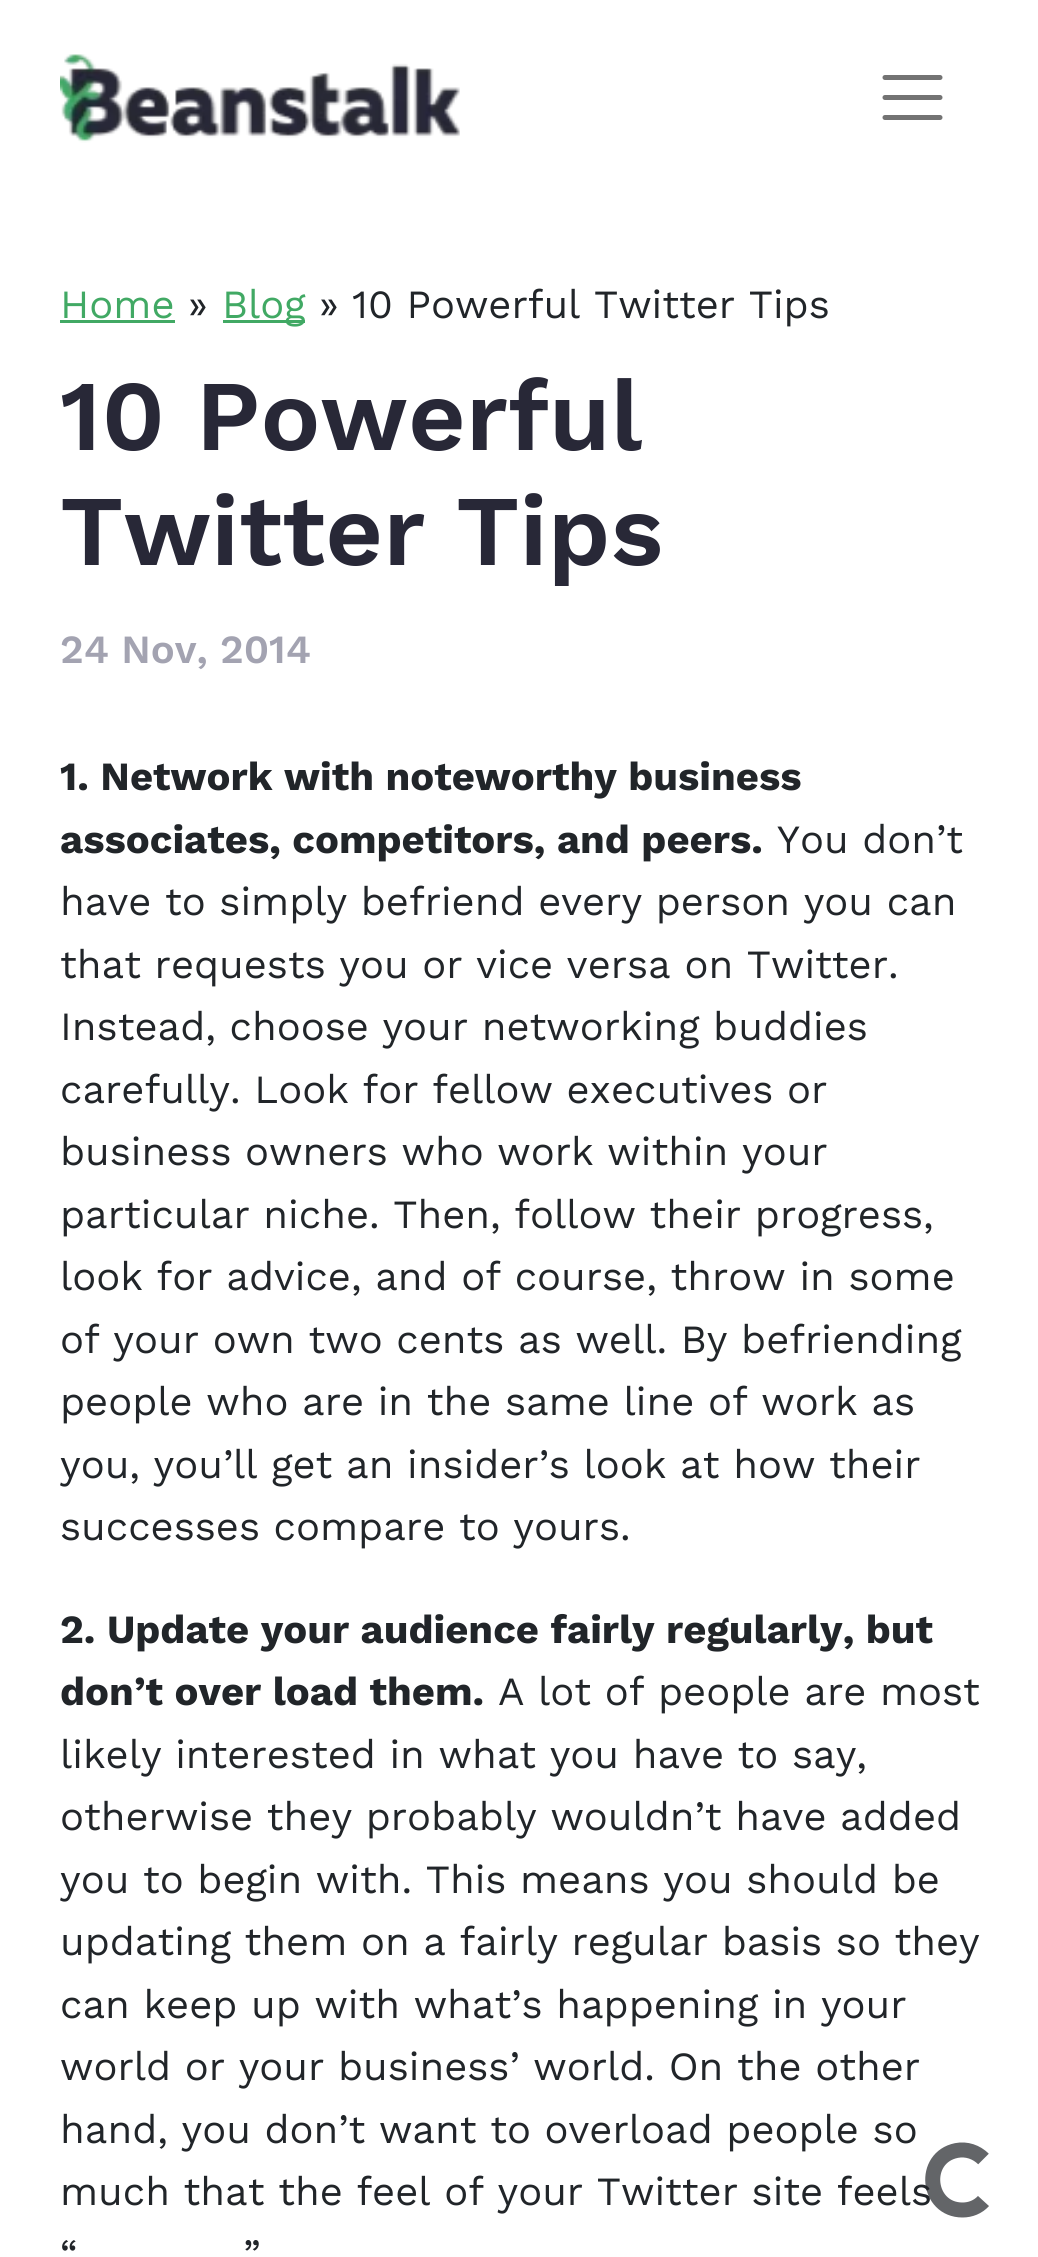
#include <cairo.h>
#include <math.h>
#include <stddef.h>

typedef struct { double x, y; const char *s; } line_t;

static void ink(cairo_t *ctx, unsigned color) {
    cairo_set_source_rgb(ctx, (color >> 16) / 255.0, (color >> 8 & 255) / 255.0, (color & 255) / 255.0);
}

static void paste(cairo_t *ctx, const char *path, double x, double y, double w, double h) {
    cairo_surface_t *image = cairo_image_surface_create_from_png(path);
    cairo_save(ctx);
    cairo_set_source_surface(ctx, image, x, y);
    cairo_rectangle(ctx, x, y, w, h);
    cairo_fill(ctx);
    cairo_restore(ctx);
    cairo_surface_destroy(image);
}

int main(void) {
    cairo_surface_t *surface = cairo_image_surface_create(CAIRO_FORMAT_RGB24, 1038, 2257);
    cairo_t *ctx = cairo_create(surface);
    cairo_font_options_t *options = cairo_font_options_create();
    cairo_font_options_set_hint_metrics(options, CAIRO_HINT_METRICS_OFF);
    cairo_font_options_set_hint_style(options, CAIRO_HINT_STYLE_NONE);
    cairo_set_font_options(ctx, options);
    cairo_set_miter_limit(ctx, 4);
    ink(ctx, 0xFFFFFF);
    cairo_paint(ctx);
    paste(ctx, "media/1.png", 60, 54, 400, 89);
    cairo_new_path(ctx);
    cairo_move_to(ctx, 885, 77.5);
    cairo_line_to(ctx, 940, 77.5);
    cairo_move_to(ctx, 885, 97.5);
    cairo_line_to(ctx, 940, 97.5);
    cairo_move_to(ctx, 885, 117.5);
    cairo_line_to(ctx, 940, 117.5);
    ink(ctx, 0x737373);
    cairo_set_line_width(ctx, 5);
    cairo_set_line_cap(ctx, CAIRO_LINE_CAP_ROUND);
    cairo_stroke(ctx);
    cairo_select_font_face(ctx, "Work Sans", CAIRO_FONT_SLANT_NORMAL, CAIRO_FONT_WEIGHT_NORMAL);
    cairo_set_font_size(ctx, 40);
    ink(ctx, 0x41A964);
    cairo_move_to(ctx, 60, 318);
    cairo_show_text(ctx, "Home");
    cairo_rectangle(ctx, 60, 320, 115, 3);
    cairo_fill(ctx);
    ink(ctx, 0x212529);
    cairo_move_to(ctx, 188, 318);
    cairo_show_text(ctx, "»");
    ink(ctx, 0x41A964);
    cairo_rectangle(ctx, 223, 320, 82, 3);
    cairo_fill(ctx);
    cairo_move_to(ctx, 222, 318);
    cairo_show_text(ctx, "Blog");
    ink(ctx, 0x212529);
    cairo_move_to(ctx, 319, 318);
    cairo_show_text(ctx, "» 10 Powerful Twitter Tips");
    cairo_select_font_face(ctx, "Work Sans SemiBold", CAIRO_FONT_SLANT_NORMAL, CAIRO_FONT_WEIGHT_NORMAL);
    cairo_set_font_size(ctx, 100);
    ink(ctx, 0x282837);
    cairo_move_to(ctx, 60, 450);
    cairo_show_text(ctx, "10 Powerful");
    cairo_move_to(ctx, 60, 565);
    cairo_show_text(ctx, "Twitter Tips");
    cairo_set_font_size(ctx, 40);
    ink(ctx, 0xA3A3B1);
    cairo_move_to(ctx, 60, 663);
    cairo_show_text(ctx, "24 Nov, 2014");
    cairo_select_font_face(ctx, "Work Sans", CAIRO_FONT_SLANT_NORMAL, CAIRO_FONT_WEIGHT_BOLD);
    ink(ctx, 0x212529);
    cairo_move_to(ctx, 60, 790);
    cairo_show_text(ctx, "1. Network with noteworthy business");
    cairo_move_to(ctx, 60, 853);
    cairo_show_text(ctx, "associates, competitors, and peers.");
    cairo_select_font_face(ctx, "Work Sans", CAIRO_FONT_SLANT_NORMAL, CAIRO_FONT_WEIGHT_NORMAL);
    {
        static const line_t items[] = {
            {777, 853, "You don’t"},
            {60, 915, "have to simply befriend every person you can"},
            {60, 978, "that requests you or vice versa on Twitter."},
            {60, 1040, "Instead, choose your networking buddies"},
            {60, 1103, "carefully. Look for fellow executives or"},
            {60, 1165, "business owners who work within your"},
            {60, 1228, "particular niche. Then, follow their progress,"},
            {60, 1290, "look for advice, and of course, throw in some"},
            {60, 1353, "of your own two cents as well. By befriending"},
            {60, 1415, "people who are in the same line of work as"},
            {60, 1478, "you, you’ll get an insider’s look at how their"},
            {60, 1540, "successes compare to yours."},
        };
        for (size_t i = 0; i < sizeof items / sizeof *items; i++) {
            cairo_move_to(ctx, items[i].x, items[i].y);
            cairo_show_text(ctx, items[i].s);
        }
    }
    cairo_select_font_face(ctx, "Work Sans", CAIRO_FONT_SLANT_NORMAL, CAIRO_FONT_WEIGHT_BOLD);
    cairo_move_to(ctx, 60, 1643);
    cairo_show_text(ctx, "2. Update your audience fairly regularly, but");
    cairo_move_to(ctx, 60, 1705);
    cairo_show_text(ctx, "don’t over load them.");
    cairo_select_font_face(ctx, "Work Sans", CAIRO_FONT_SLANT_NORMAL, CAIRO_FONT_WEIGHT_NORMAL);
    {
        static const line_t items[] = {
            {498, 1705, "A lot of people are most"},
            {60, 1768, "likely interested in what you have to say,"},
            {60, 1830, "otherwise they probably wouldn’t have added"},
            {60, 1893, "you to begin with. This means you should be"},
            {60, 1955, "updating them on a fairly regular basis so they"},
            {60, 2018, "can keep up with what’s happening in your"},
            {60, 2080, "world or your business’ world. On the other"},
            {60, 2143, "hand, you don’t want to overload people so"},
            {60, 2205, "much that the feel of your Twitter site feels"},
            {60, 2268, "“"},
            {243, 2268, "”"},
        };
        for (size_t i = 0; i < sizeof items / sizeof *items; i++) {
            cairo_move_to(ctx, items[i].x, items[i].y);
            cairo_show_text(ctx, items[i].s);
        }
    }
    cairo_new_path(ctx);
    cairo_move_to(ctx, 983.5, 2201);
    cairo_curve_to(ctx, 978, 2207, 970.5, 2210, 962.5, 2210);
    cairo_curve_to(ctx, 926.5, 2210, 921.5, 2157.5, 956.5, 2150.5);
    cairo_curve_to(ctx, 966.5, 2148.5, 976.5, 2152, 983.5, 2159);
    cairo_set_source_rgba(ctx, 0.129, 0.145, 0.161, 0.7);
    cairo_set_line_width(ctx, 15);
    cairo_set_line_cap(ctx, CAIRO_LINE_CAP_BUTT);
    cairo_stroke(ctx);
    cairo_surface_write_to_png(surface, "image.png");
    cairo_font_options_destroy(options);
    cairo_destroy(ctx);
    cairo_surface_destroy(surface);
    return 0;
}
